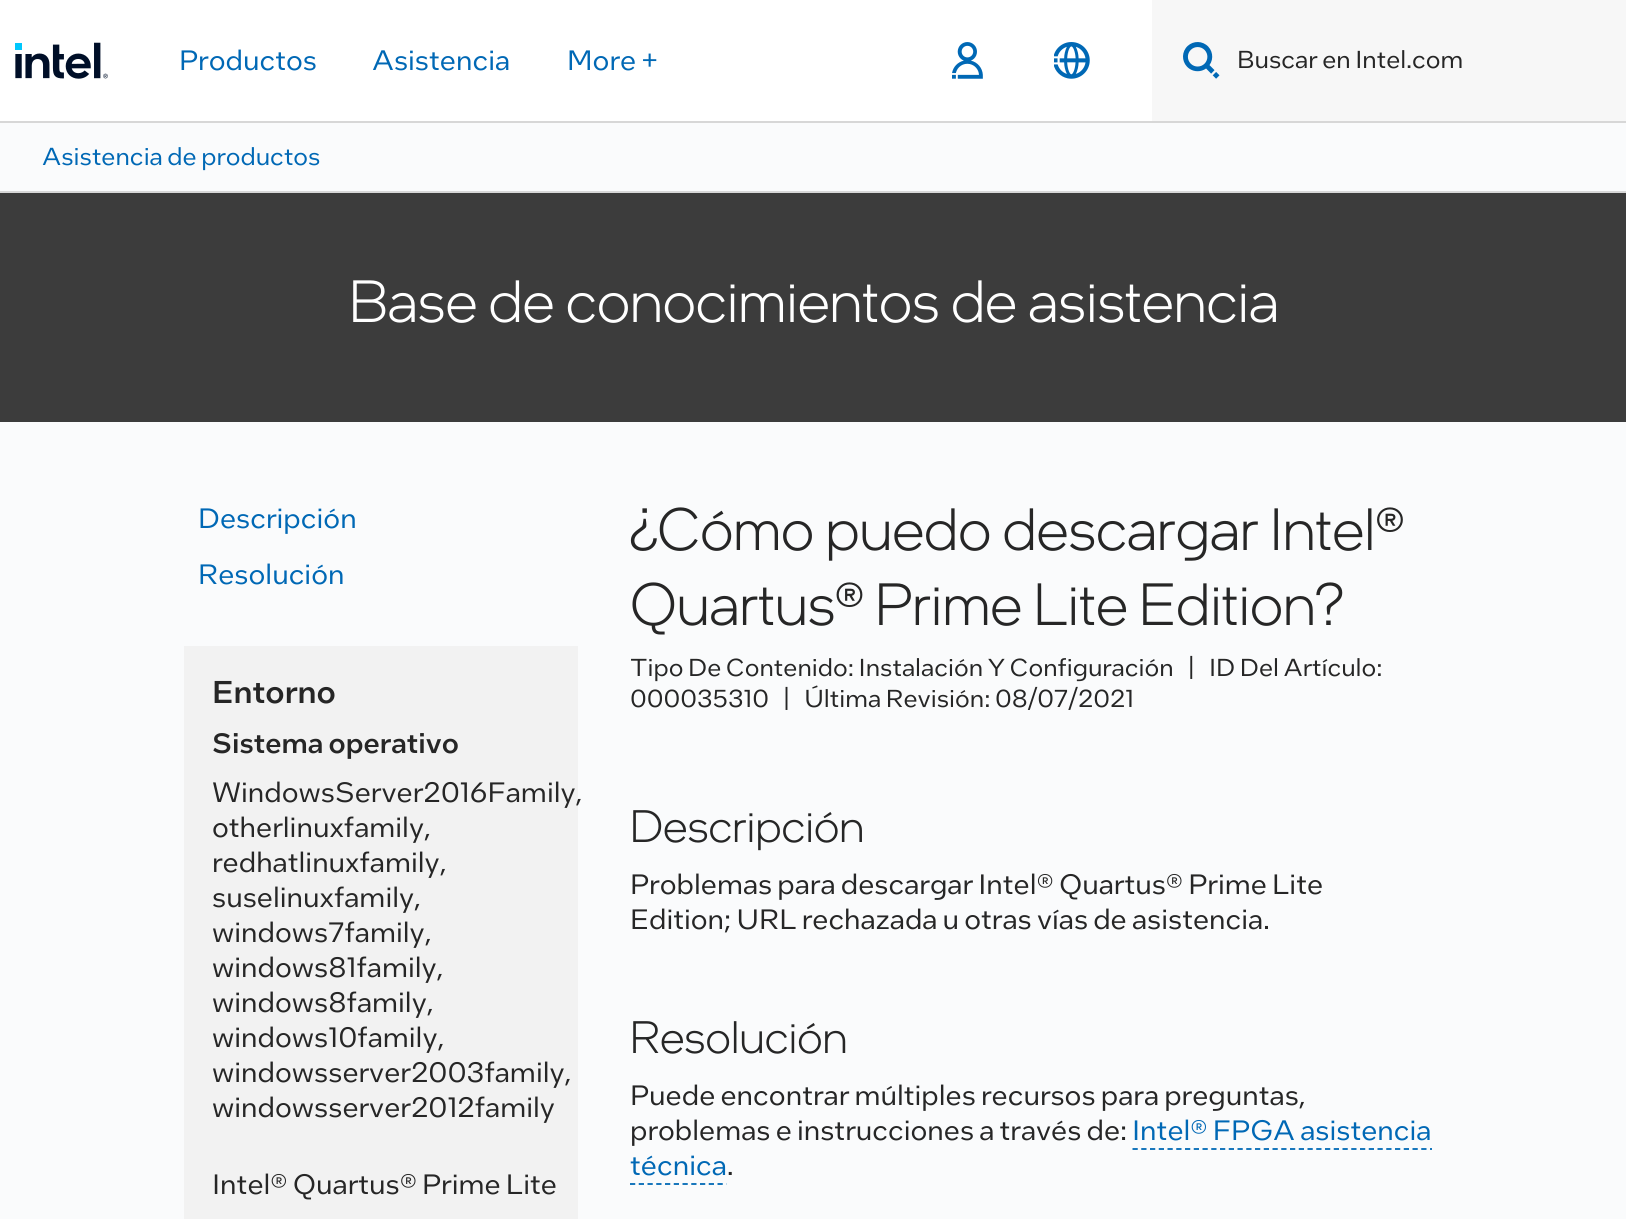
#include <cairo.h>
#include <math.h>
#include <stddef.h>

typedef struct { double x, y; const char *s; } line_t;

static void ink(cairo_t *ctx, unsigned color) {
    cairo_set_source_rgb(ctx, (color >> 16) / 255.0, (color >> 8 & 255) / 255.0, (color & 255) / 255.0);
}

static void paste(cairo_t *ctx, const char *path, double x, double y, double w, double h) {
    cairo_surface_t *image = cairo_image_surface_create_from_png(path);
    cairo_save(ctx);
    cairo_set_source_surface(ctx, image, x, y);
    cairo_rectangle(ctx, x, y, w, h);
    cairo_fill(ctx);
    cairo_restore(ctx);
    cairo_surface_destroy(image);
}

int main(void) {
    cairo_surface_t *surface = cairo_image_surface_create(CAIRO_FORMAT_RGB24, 1626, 1219);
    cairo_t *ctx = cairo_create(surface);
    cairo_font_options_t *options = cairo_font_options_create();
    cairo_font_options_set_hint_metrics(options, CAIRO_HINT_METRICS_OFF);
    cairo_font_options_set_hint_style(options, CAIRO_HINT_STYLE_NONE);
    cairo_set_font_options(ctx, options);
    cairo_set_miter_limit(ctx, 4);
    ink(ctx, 0xFAFBFC);
    cairo_paint(ctx);
    ink(ctx, 0xFFFFFF);
    cairo_rectangle(ctx, 0, 0, 1152, 121);
    cairo_fill(ctx);
    paste(ctx, "media/1.png", 15, 42, 93, 37);
    cairo_select_font_face(ctx, "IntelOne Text", CAIRO_FONT_SLANT_NORMAL, CAIRO_FONT_WEIGHT_NORMAL);
    cairo_set_font_size(ctx, 28);
    ink(ctx, 0x0068B5);
    {
        static const line_t items[] = {
            {179, 70, "Productos"},
            {372, 70, "Asistencia"},
            {567, 70, "More +"},
        };
        for (size_t i = 0; i < sizeof items / sizeof *items; i++) {
            cairo_move_to(ctx, items[i].x, items[i].y);
            cairo_show_text(ctx, items[i].s);
        }
    }
    paste(ctx, "media/2.png", 952, 42, 31, 37);
    paste(ctx, "media/3.png", 1054, 42, 36, 37);
    ink(ctx, 0xF7F7F7);
    cairo_rectangle(ctx, 1152, 0, 474, 121);
    cairo_fill(ctx);
    paste(ctx, "media/4.png", 1183, 42, 37, 37);
    cairo_set_font_size(ctx, 24.5);
    ink(ctx, 0x262626);
    cairo_move_to(ctx, 1237, 68);
    cairo_show_text(ctx, "Buscar en Intel.com");
    ink(ctx, 0xD7D7D7);
    cairo_rectangle(ctx, 0, 121, 1626, 2);
    cairo_fill(ctx);
    cairo_rectangle(ctx, 0, 191, 1626, 2);
    cairo_fill(ctx);
    ink(ctx, 0x0068B5);
    cairo_move_to(ctx, 42, 165);
    cairo_show_text(ctx, "Asistencia de productos");
    ink(ctx, 0x3C3C3C);
    cairo_rectangle(ctx, 0, 193, 1626, 229);
    cairo_fill(ctx);
    cairo_select_font_face(ctx, "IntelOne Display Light", CAIRO_FONT_SLANT_NORMAL, CAIRO_FONT_WEIGHT_NORMAL);
    cairo_set_font_size(ctx, 59.5);
    ink(ctx, 0xFFFFFF);
    cairo_move_to(ctx, 349, 322);
    cairo_show_text(ctx, "Base de conocimientos de asistencia");
    cairo_select_font_face(ctx, "IntelOne Text", CAIRO_FONT_SLANT_NORMAL, CAIRO_FONT_WEIGHT_NORMAL);
    cairo_set_font_size(ctx, 28);
    ink(ctx, 0x0068B5);
    cairo_move_to(ctx, 198, 528);
    cairo_show_text(ctx, "Descripción");
    cairo_move_to(ctx, 198, 584);
    cairo_show_text(ctx, "Resolución");
    ink(ctx, 0xF2F2F2);
    cairo_rectangle(ctx, 184, 646, 394, 573);
    cairo_fill(ctx);
    cairo_select_font_face(ctx, "IntelOne Text Medium", CAIRO_FONT_SLANT_NORMAL, CAIRO_FONT_WEIGHT_NORMAL);
    cairo_set_font_size(ctx, 31.5);
    ink(ctx, 0x262626);
    cairo_move_to(ctx, 212, 703);
    cairo_show_text(ctx, "Entorno");
    cairo_set_font_size(ctx, 28);
    cairo_move_to(ctx, 212, 753);
    cairo_show_text(ctx, "Sistema operativo");
    cairo_select_font_face(ctx, "IntelOne Text", CAIRO_FONT_SLANT_NORMAL, CAIRO_FONT_WEIGHT_NORMAL);
    {
        static const line_t items[] = {
            {212, 802, "WindowsServer2016Family,"},
            {212, 837, "otherlinuxfamily,"},
            {212, 872, "redhatlinuxfamily,"},
            {212, 907, "suselinuxfamily,"},
            {212, 942, "windows7family,"},
            {212, 977, "windows81family,"},
            {212, 1012, "windows8family,"},
            {212, 1047, "windows10family,"},
            {212, 1082, "windowsserver2003family,"},
            {212, 1117, "windowsserver2012family"},
            {212, 1194, "Intel® Quartus® Prime Lite"},
        };
        for (size_t i = 0; i < sizeof items / sizeof *items; i++) {
            cairo_move_to(ctx, items[i].x, items[i].y);
            cairo_show_text(ctx, items[i].s);
        }
    }
    cairo_select_font_face(ctx, "IntelOne Display Light", CAIRO_FONT_SLANT_NORMAL, CAIRO_FONT_WEIGHT_NORMAL);
    cairo_set_font_size(ctx, 59.5);
    cairo_move_to(ctx, 630, 550);
    cairo_show_text(ctx, "¿Cómo puedo descargar Intel®");
    cairo_move_to(ctx, 630, 625);
    cairo_show_text(ctx, "Quartus® Prime Lite Edition?");
    cairo_select_font_face(ctx, "IntelOne Text", CAIRO_FONT_SLANT_NORMAL, CAIRO_FONT_WEIGHT_NORMAL);
    cairo_set_font_size(ctx, 24.5);
    cairo_move_to(ctx, 630, 676);
    cairo_show_text(ctx, "Tipo De Contenido: Instalación Y Configuración   |   ID Del Artículo:");
    cairo_move_to(ctx, 630, 707);
    cairo_show_text(ctx, "000035310   |   Última Revisión: 08/07/2021");
    cairo_select_font_face(ctx, "IntelOne Display Light", CAIRO_FONT_SLANT_NORMAL, CAIRO_FONT_WEIGHT_NORMAL);
    cairo_set_font_size(ctx, 45.5);
    cairo_move_to(ctx, 630, 842);
    cairo_show_text(ctx, "Descripción");
    cairo_select_font_face(ctx, "IntelOne Text", CAIRO_FONT_SLANT_NORMAL, CAIRO_FONT_WEIGHT_NORMAL);
    cairo_set_font_size(ctx, 28);
    cairo_move_to(ctx, 630, 894);
    cairo_show_text(ctx, "Problemas para descargar Intel® Quartus® Prime Lite");
    cairo_move_to(ctx, 630, 929);
    cairo_show_text(ctx, "Edition; URL rechazada u otras vías de asistencia.");
    cairo_select_font_face(ctx, "IntelOne Display Light", CAIRO_FONT_SLANT_NORMAL, CAIRO_FONT_WEIGHT_NORMAL);
    cairo_set_font_size(ctx, 45.5);
    cairo_move_to(ctx, 630, 1053);
    cairo_show_text(ctx, "Resolución");
    cairo_select_font_face(ctx, "IntelOne Text", CAIRO_FONT_SLANT_NORMAL, CAIRO_FONT_WEIGHT_NORMAL);
    cairo_set_font_size(ctx, 28);
    cairo_move_to(ctx, 630, 1105);
    cairo_show_text(ctx, "Puede encontrar múltiples recursos para preguntas,");
    cairo_move_to(ctx, 630, 1140);
    cairo_show_text(ctx, "problemas e instrucciones a través de:");
    ink(ctx, 0x0068B5);
    cairo_move_to(ctx, 1132, 1140);
    cairo_show_text(ctx, "Intel® FPGA asistencia");
    cairo_new_path(ctx);
    cairo_move_to(ctx, 1132.5, 1149);
    cairo_line_to(ctx, 1432, 1149);
    cairo_set_line_width(ctx, 1.8);
    cairo_set_dash(ctx, (double[]){5.25, 3.5}, 2, 0);
    cairo_stroke(ctx);
    cairo_move_to(ctx, 630, 1175);
    cairo_show_text(ctx, "técnica");
    cairo_new_path(ctx);
    cairo_move_to(ctx, 630, 1184);
    cairo_line_to(ctx, 726.5, 1184);
    cairo_stroke(ctx);
    ink(ctx, 0x262626);
    cairo_move_to(ctx, 727, 1175);
    cairo_show_text(ctx, ".");
    cairo_surface_write_to_png(surface, "image.png");
    cairo_font_options_destroy(options);
    cairo_destroy(ctx);
    cairo_surface_destroy(surface);
    return 0;
}
